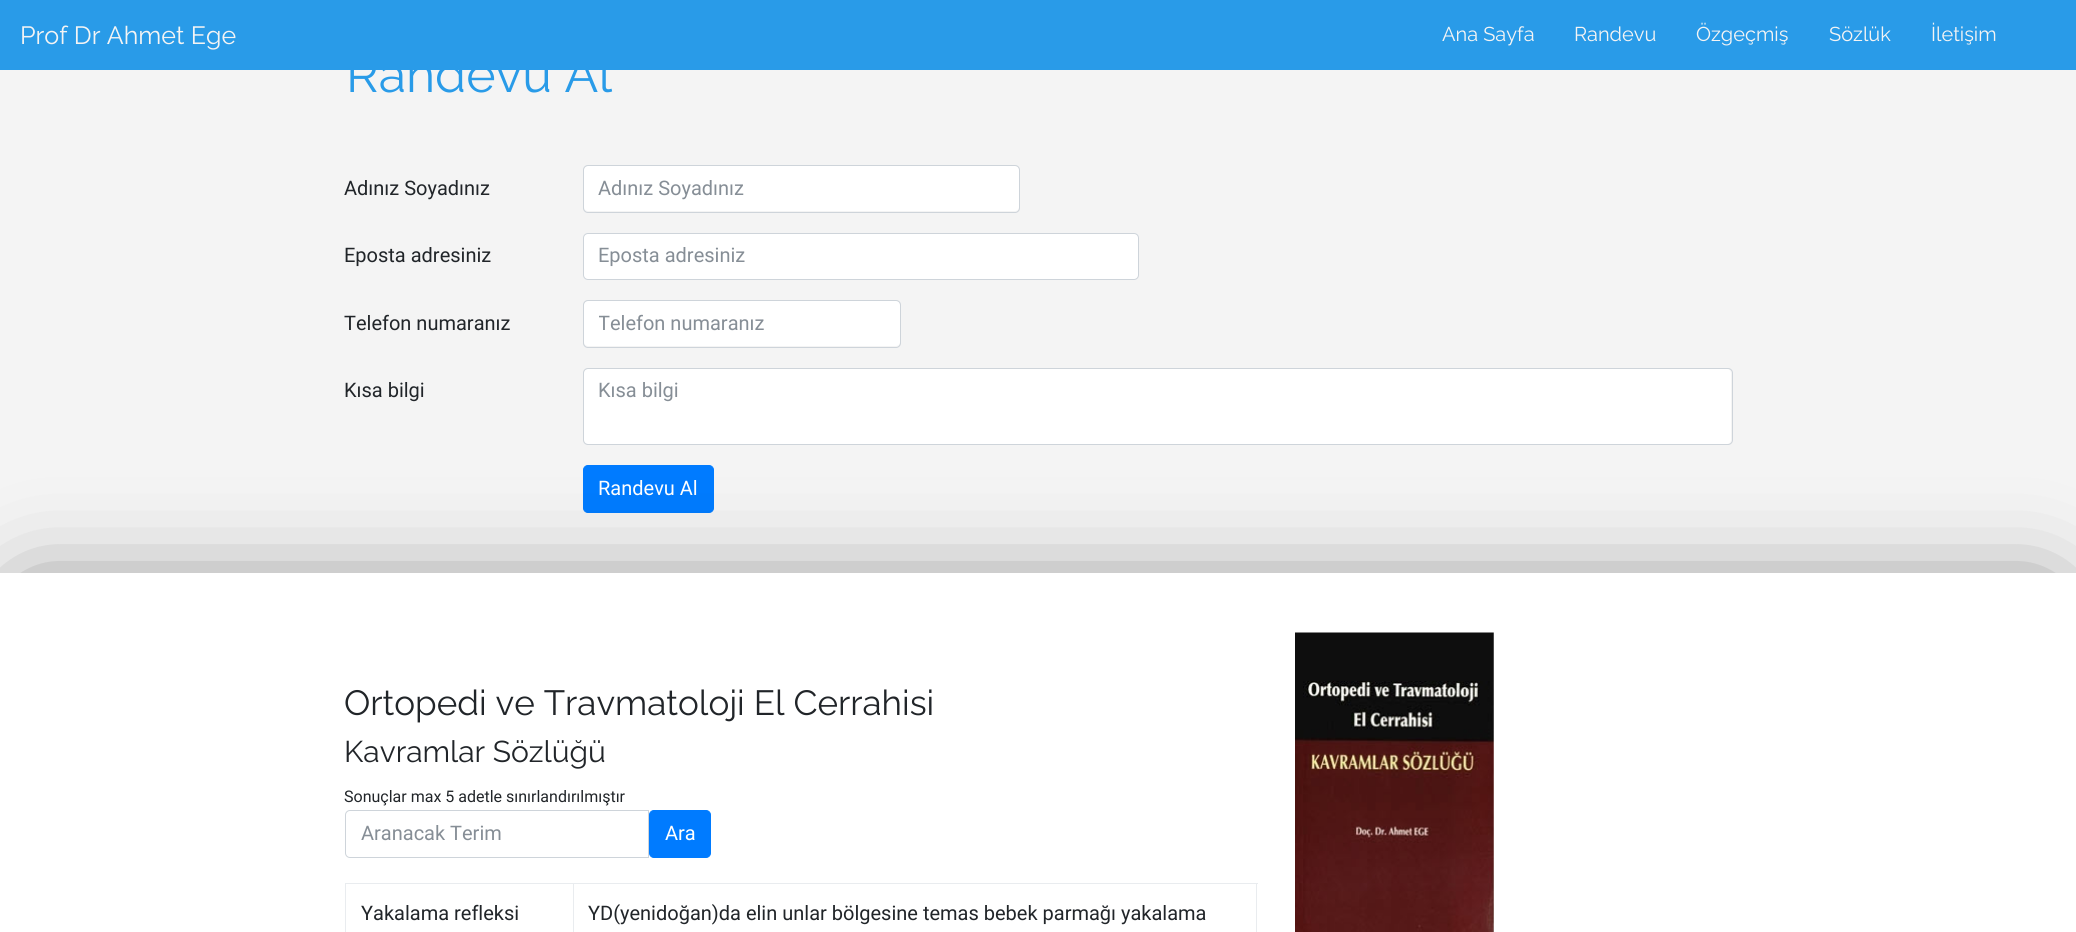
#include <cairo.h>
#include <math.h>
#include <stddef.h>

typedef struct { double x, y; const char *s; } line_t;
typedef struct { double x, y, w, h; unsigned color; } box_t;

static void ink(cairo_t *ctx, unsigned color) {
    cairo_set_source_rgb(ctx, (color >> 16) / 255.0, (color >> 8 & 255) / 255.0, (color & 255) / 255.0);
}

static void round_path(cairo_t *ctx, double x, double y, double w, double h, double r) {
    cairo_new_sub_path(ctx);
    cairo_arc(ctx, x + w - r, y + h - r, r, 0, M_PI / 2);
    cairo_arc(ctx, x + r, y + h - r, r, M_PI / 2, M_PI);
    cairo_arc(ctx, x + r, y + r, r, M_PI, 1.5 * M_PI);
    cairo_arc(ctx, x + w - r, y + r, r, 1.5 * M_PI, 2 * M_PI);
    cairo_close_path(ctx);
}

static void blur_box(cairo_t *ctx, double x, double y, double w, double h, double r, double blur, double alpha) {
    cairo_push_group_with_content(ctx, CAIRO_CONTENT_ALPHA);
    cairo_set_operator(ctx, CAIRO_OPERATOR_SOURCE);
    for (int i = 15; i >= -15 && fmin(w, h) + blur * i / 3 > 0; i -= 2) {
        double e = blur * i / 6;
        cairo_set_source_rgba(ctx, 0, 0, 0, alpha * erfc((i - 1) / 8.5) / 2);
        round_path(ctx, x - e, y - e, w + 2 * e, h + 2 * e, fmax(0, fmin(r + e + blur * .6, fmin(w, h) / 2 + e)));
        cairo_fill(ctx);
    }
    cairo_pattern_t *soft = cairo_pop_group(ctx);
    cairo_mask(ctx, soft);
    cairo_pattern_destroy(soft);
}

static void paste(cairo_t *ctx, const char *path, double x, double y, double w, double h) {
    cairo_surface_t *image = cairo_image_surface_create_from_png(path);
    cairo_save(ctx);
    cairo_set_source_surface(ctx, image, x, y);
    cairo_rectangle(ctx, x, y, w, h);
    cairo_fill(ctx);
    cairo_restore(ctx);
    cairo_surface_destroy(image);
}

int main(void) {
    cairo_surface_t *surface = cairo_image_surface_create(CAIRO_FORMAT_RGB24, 2076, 932);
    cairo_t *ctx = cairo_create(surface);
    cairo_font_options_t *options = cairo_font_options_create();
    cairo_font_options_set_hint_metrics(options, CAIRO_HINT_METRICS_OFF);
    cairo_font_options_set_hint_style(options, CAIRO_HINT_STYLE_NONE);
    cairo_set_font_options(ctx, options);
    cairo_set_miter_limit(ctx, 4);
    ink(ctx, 0xF4F4F4);
    cairo_paint(ctx);
    cairo_save(ctx);
    cairo_set_fill_rule(ctx, CAIRO_FILL_RULE_EVEN_ODD);
    cairo_new_path(ctx);
    cairo_move_to(ctx, 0, 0);
    cairo_line_to(ctx, 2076, 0);
    cairo_line_to(ctx, 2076, 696);
    cairo_line_to(ctx, 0, 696);
    cairo_close_path(ctx);
    cairo_move_to(ctx, 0, -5);
    cairo_line_to(ctx, 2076, -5);
    cairo_line_to(ctx, 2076, 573);
    cairo_line_to(ctx, 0, 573);
    cairo_close_path(ctx);
    cairo_clip(ctx);
    ink(ctx, 0x000000);
    blur_box(ctx, 30, 25, 2016, 518, 0, 50.5, 0.63);
    cairo_restore(ctx);
    ink(ctx, 0x299BE8);
    cairo_rectangle(ctx, 0, 0, 2076, 70);
    cairo_fill(ctx);
    cairo_select_font_face(ctx, "Raleway Thin", CAIRO_FONT_SLANT_NORMAL, CAIRO_FONT_WEIGHT_NORMAL);
    cairo_set_font_size(ctx, 25);
    ink(ctx, 0xF4F4F4);
    cairo_move_to(ctx, 20, 44);
    cairo_show_text(ctx, "Prof Dr Ahmet Ege");
    cairo_set_font_size(ctx, 20);
    {
        static const line_t items[] = {
            {1442, 41, "Ana Sayfa"},
            {1574, 41, "Randevu"},
            {1696, 41, "Özgeçmiş"},
            {1829, 41, "Sözlük"},
            {1931, 41, "İletişim"},
        };
        for (size_t i = 0; i < sizeof items / sizeof *items; i++) {
            cairo_move_to(ctx, items[i].x, items[i].y);
            cairo_show_text(ctx, items[i].s);
        }
    }
    cairo_set_font_size(ctx, 50);
    ink(ctx, 0x299BE8);
    cairo_move_to(ctx, 346, 92);
    cairo_show_text(ctx, "Randevu Al");
    cairo_select_font_face(ctx, "Roboto", CAIRO_FONT_SLANT_NORMAL, CAIRO_FONT_WEIGHT_NORMAL);
    cairo_set_font_size(ctx, 20);
    ink(ctx, 0x212529);
    cairo_move_to(ctx, 344, 195);
    cairo_show_text(ctx, "Adınız Soyadınız");
    ink(ctx, 0xFFFFFF);
    round_path(ctx, 584, 166, 435, 45, 4);
    cairo_fill(ctx);
    round_path(ctx, 583.5, 165.5, 436, 47, 4.5);
    ink(ctx, 0xCED4DA);
    cairo_set_line_width(ctx, 1);
    cairo_stroke(ctx);
    ink(ctx, 0x868E96);
    cairo_move_to(ctx, 598, 195);
    cairo_show_text(ctx, "Adınız Soyadınız");
    ink(ctx, 0x212529);
    cairo_move_to(ctx, 344, 262);
    cairo_show_text(ctx, "Eposta adresiniz");
    ink(ctx, 0xFFFFFF);
    round_path(ctx, 583.5, 233.5, 555, 46, 4.5);
    cairo_fill_preserve(ctx);
    ink(ctx, 0xCED4DA);
    cairo_stroke(ctx);
    ink(ctx, 0x868E96);
    cairo_move_to(ctx, 598, 262);
    cairo_show_text(ctx, "Eposta adresiniz");
    ink(ctx, 0x212529);
    cairo_move_to(ctx, 344, 330);
    cairo_show_text(ctx, "Telefon numaranız");
    ink(ctx, 0xFFFFFF);
    round_path(ctx, 584, 301, 316, 45, 4);
    cairo_fill(ctx);
    round_path(ctx, 583.5, 300.5, 317, 47, 4.5);
    ink(ctx, 0xCED4DA);
    cairo_stroke(ctx);
    cairo_save(ctx);
    cairo_rectangle(ctx, 599, 311, 286, 24);
    cairo_clip(ctx);
    ink(ctx, 0x868E96);
    cairo_move_to(ctx, 598, 330);
    cairo_show_text(ctx, "Telefon numaranız");
    cairo_restore(ctx);
    ink(ctx, 0x212529);
    cairo_move_to(ctx, 344, 397);
    cairo_show_text(ctx, "Kısa bilgi");
    ink(ctx, 0xFFFFFF);
    round_path(ctx, 584, 369, 1147, 75, 4);
    cairo_fill(ctx);
    round_path(ctx, 583.5, 368.5, 1149, 76, 4.5);
    ink(ctx, 0xCED4DA);
    cairo_stroke(ctx);
    ink(ctx, 0x868E96);
    cairo_move_to(ctx, 598, 397);
    cairo_show_text(ctx, "Kısa bilgi");
    ink(ctx, 0x007BFF);
    round_path(ctx, 583.5, 465.5, 130, 47, 4.5);
    cairo_fill_preserve(ctx);
    cairo_stroke(ctx);
    ink(ctx, 0xFFFFFF);
    cairo_move_to(ctx, 598, 495);
    cairo_show_text(ctx, "Randevu Al");
    ink(ctx, 0x000000);
    blur_box(ctx, 30, 603, 2016, 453, 0, 50.5, 0.63);
    ink(ctx, 0xFFFFFF);
    cairo_rectangle(ctx, 0, 573, 2076, 359);
    cairo_fill(ctx);
    cairo_select_font_face(ctx, "Raleway Thin", CAIRO_FONT_SLANT_NORMAL, CAIRO_FONT_WEIGHT_NORMAL);
    cairo_set_font_size(ctx, 35);
    ink(ctx, 0x212529);
    cairo_move_to(ctx, 344, 715);
    cairo_show_text(ctx, "Ortopedi ve Travmatoloji El Cerrahisi");
    cairo_set_font_size(ctx, 30);
    cairo_move_to(ctx, 344, 762);
    cairo_show_text(ctx, "Kavramlar Sözlüğü");
    cairo_select_font_face(ctx, "Roboto", CAIRO_FONT_SLANT_NORMAL, CAIRO_FONT_WEIGHT_NORMAL);
    cairo_set_font_size(ctx, 16);
    cairo_move_to(ctx, 344, 802);
    cairo_show_text(ctx, "Sonuçlar max 5 adetle sınırlandırılmıştır");
    cairo_new_path(ctx);
    cairo_move_to(ctx, 350, 810.5);
    cairo_line_to(ctx, 648.5, 810.5);
    cairo_line_to(ctx, 648.5, 857.5);
    cairo_line_to(ctx, 350, 857.5);
    cairo_curve_to(ctx, 347.5, 857.5, 345.5, 855.5, 345.5, 853);
    cairo_line_to(ctx, 345.5, 815);
    cairo_curve_to(ctx, 345.5, 812.5, 347.5, 810.5, 350, 810.5);
    cairo_close_path(ctx);
    ink(ctx, 0xCED4DA);
    cairo_stroke(ctx);
    cairo_set_font_size(ctx, 20);
    ink(ctx, 0x868E96);
    cairo_move_to(ctx, 361, 840);
    cairo_show_text(ctx, "Aranacak Terim");
    ink(ctx, 0x007BFF);
    round_path(ctx, 649.5, 810.5, 61, 47, 4.5);
    cairo_fill_preserve(ctx);
    cairo_stroke(ctx);
    ink(ctx, 0xFFFFFF);
    cairo_move_to(ctx, 665, 840);
    cairo_show_text(ctx, "Ara");
    {
        static const box_t items[] = {
            {345, 883, 913, 1, 0xE9ECEF},
            {1256, 883, 1, 49, 0xE9ECEF},
            {345, 883, 1, 49, 0xE9ECEF},
        };
        for (size_t i = 0; i < sizeof items / sizeof *items; i++) {
            ink(ctx, items[i].color);
            cairo_rectangle(ctx, items[i].x, items[i].y, items[i].w, items[i].h);
            cairo_fill(ctx);
        }
    }
    ink(ctx, 0x212529);
    cairo_move_to(ctx, 361, 920);
    cairo_show_text(ctx, "Yakalama refleksi");
    ink(ctx, 0xE9ECEF);
    cairo_rectangle(ctx, 573, 883, 1, 49);
    cairo_fill(ctx);
    ink(ctx, 0x212529);
    cairo_move_to(ctx, 588, 920);
    cairo_show_text(ctx, "YD(yenidoğan)da elin unlar bölgesine temas bebek parmağı yakalama");
    paste(ctx, "media/1.png", 1295, 632, 199, 300);
    cairo_surface_write_to_png(surface, "image.png");
    cairo_font_options_destroy(options);
    cairo_destroy(ctx);
    cairo_surface_destroy(surface);
    return 0;
}
